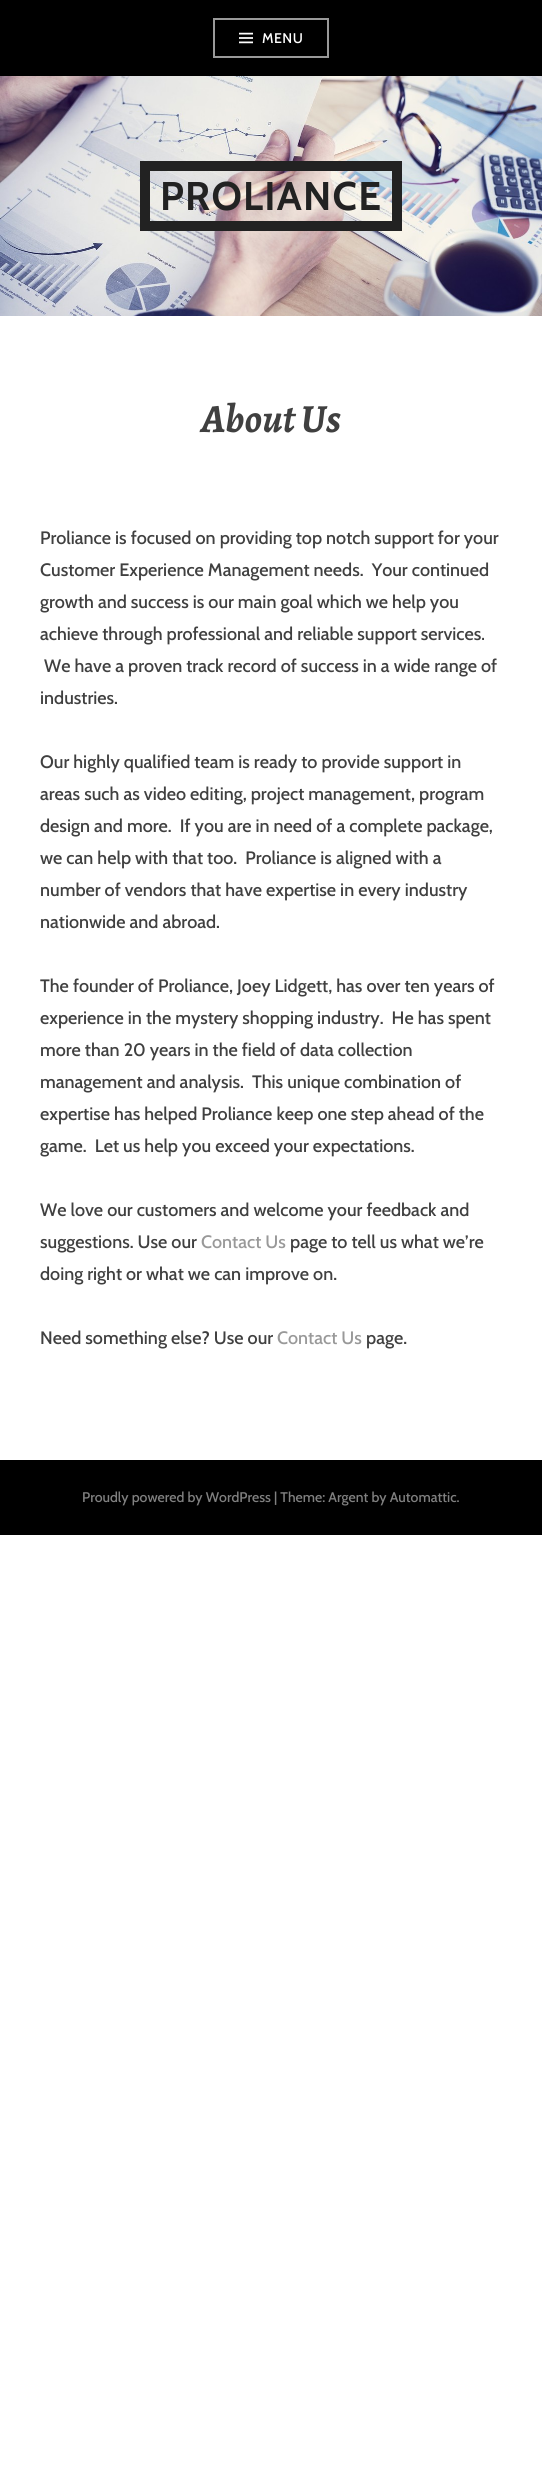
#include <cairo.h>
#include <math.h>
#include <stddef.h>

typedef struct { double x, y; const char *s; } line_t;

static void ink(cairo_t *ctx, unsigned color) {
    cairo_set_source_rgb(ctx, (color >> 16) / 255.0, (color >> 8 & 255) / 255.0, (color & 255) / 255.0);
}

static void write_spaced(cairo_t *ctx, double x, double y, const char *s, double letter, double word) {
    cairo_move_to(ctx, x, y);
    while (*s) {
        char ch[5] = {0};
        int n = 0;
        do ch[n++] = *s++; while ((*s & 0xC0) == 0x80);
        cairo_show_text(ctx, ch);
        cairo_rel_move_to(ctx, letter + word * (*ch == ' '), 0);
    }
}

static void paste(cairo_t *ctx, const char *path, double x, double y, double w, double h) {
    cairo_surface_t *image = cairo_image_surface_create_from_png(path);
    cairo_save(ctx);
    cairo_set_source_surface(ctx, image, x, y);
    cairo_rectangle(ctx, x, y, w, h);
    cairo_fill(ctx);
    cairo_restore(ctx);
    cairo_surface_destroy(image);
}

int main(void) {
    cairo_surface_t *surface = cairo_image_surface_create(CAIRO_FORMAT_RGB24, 542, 2477);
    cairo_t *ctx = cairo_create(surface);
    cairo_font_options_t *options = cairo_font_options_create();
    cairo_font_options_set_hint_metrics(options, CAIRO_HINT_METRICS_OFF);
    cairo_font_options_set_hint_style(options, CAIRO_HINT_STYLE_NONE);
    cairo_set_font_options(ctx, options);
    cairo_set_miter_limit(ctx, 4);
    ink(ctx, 0xFFFFFF);
    cairo_paint(ctx);
    ink(ctx, 0x000000);
    cairo_rectangle(ctx, 0, 0, 542, 76);
    cairo_fill(ctx);
    cairo_rectangle(ctx, 214, 19, 114, 38);
    ink(ctx, 0x999999);
    cairo_stroke(ctx);
    paste(ctx, "media/1.png", 239, 32, 14, 12);
    cairo_select_font_face(ctx, "Cabin Medium", CAIRO_FONT_SLANT_NORMAL, CAIRO_FONT_WEIGHT_NORMAL);
    cairo_set_font_size(ctx, 14);
    ink(ctx, 0xFFFFFF);
    write_spaced(ctx, 262, 43, "MENU", 0.5, 0);
    paste(ctx, "media/2.png", 0, 76, 542, 240);
    cairo_rectangle(ctx, 145, 166, 252, 60);
    ink(ctx, 0x222222);
    cairo_set_line_width(ctx, 10);
    cairo_stroke(ctx);
    cairo_select_font_face(ctx, "Cabin", CAIRO_FONT_SLANT_NORMAL, CAIRO_FONT_WEIGHT_BOLD);
    cairo_set_font_size(ctx, 40);
    write_spaced(ctx, 160, 210, "PROLIANCE", 1.25, 0);
    cairo_select_font_face(ctx, "Alegreya", CAIRO_FONT_SLANT_ITALIC, CAIRO_FONT_WEIGHT_BOLD);
    ink(ctx, 0x404040);
    cairo_move_to(ctx, 201, 432);
    cairo_show_text(ctx, "About Us");
    cairo_select_font_face(ctx, "Cabin Medium", CAIRO_FONT_SLANT_NORMAL, CAIRO_FONT_WEIGHT_NORMAL);
    cairo_set_font_size(ctx, 18);
    {
        static const line_t items[] = {
            {40, 544, "Proliance is focused on providing top notch support for your"},
            {40, 576, "Customer Experience Management needs.  Your continued"},
            {40, 608, "growth and success is our main goal which we help you"},
            {40, 640, "achieve through professional and reliable support services."},
            {44, 672, "We have a proven track record of success in a wide range of"},
            {40, 704, "industries."},
            {40, 768, "Our highly qualified team is ready to provide support in"},
            {40, 800, "areas such as video editing, project management, program"},
            {40, 832, "design and more.  If you are in need of a complete package,"},
            {40, 864, "we can help with that too.  Proliance is aligned with a"},
            {40, 896, "number of vendors that have expertise in every industry"},
            {40, 928, "nationwide and abroad."},
            {40, 992, "The founder of Proliance, Joey Lidgett, has over ten years of"},
            {40, 1024, "experience in the mystery shopping industry.  He has spent"},
            {40, 1056, "more than 20 years in the field of data collection"},
            {40, 1088, "management and analysis.  This unique combination of"},
            {40, 1120, "expertise has helped Proliance keep one step ahead of the"},
            {40, 1152, "game.  Let us help you exceed your expectations."},
            {40, 1216, "We love our customers and welcome your feedback and"},
            {40, 1248, "suggestions. Use our"},
        };
        for (size_t i = 0; i < sizeof items / sizeof *items; i++) {
            cairo_move_to(ctx, items[i].x, items[i].y);
            cairo_show_text(ctx, items[i].s);
        }
    }
    ink(ctx, 0x999999);
    cairo_move_to(ctx, 201, 1248);
    cairo_show_text(ctx, "Contact Us");
    ink(ctx, 0x404040);
    {
        static const line_t items[] = {
            {290, 1248, "page to tell us what we’re"},
            {40, 1280, "doing right or what we can improve on."},
            {40, 1344, "Need something else? Use our"},
        };
        for (size_t i = 0; i < sizeof items / sizeof *items; i++) {
            cairo_move_to(ctx, items[i].x, items[i].y);
            cairo_show_text(ctx, items[i].s);
        }
    }
    ink(ctx, 0x999999);
    cairo_move_to(ctx, 277, 1344);
    cairo_show_text(ctx, "Contact Us");
    ink(ctx, 0x404040);
    cairo_move_to(ctx, 366, 1344);
    cairo_show_text(ctx, "page.");
    ink(ctx, 0x000000);
    cairo_rectangle(ctx, 0, 1460, 542, 75);
    cairo_fill(ctx);
    cairo_set_font_size(ctx, 14);
    ink(ctx, 0x808080);
    cairo_move_to(ctx, 82, 1502);
    cairo_show_text(ctx, "Proudly powered by WordPress | Theme: Argent by Automattic.");
    cairo_surface_write_to_png(surface, "image.png");
    cairo_font_options_destroy(options);
    cairo_destroy(ctx);
    cairo_surface_destroy(surface);
    return 0;
}
